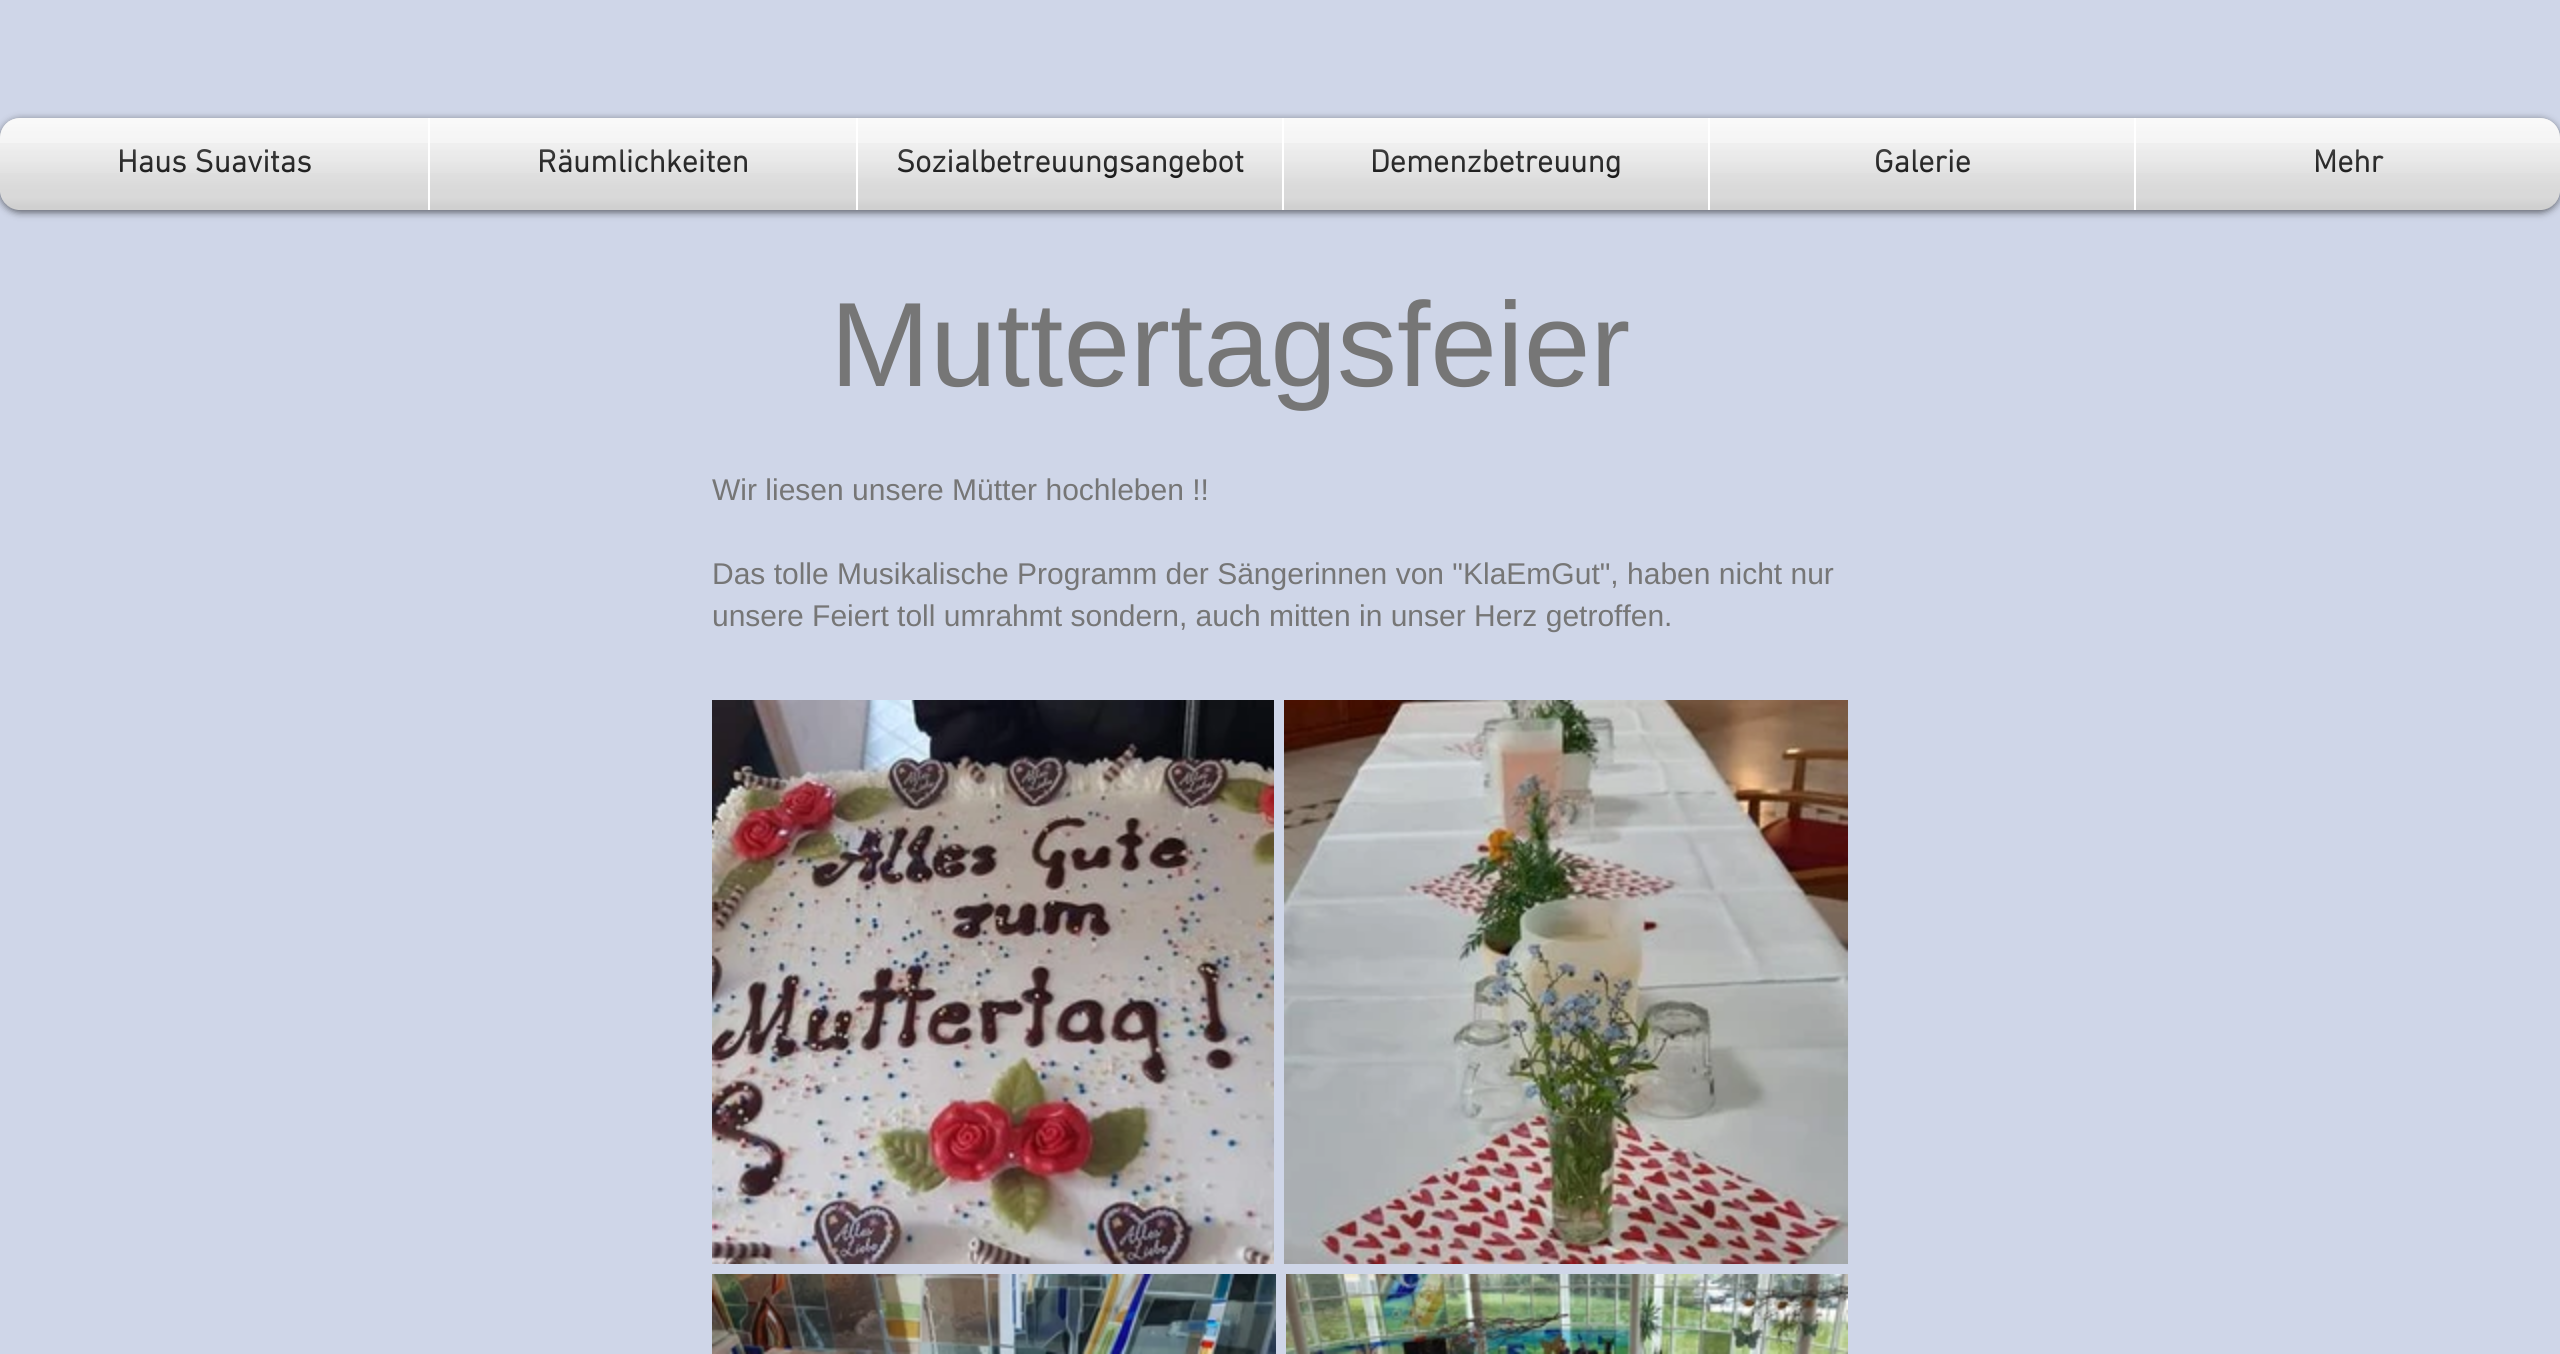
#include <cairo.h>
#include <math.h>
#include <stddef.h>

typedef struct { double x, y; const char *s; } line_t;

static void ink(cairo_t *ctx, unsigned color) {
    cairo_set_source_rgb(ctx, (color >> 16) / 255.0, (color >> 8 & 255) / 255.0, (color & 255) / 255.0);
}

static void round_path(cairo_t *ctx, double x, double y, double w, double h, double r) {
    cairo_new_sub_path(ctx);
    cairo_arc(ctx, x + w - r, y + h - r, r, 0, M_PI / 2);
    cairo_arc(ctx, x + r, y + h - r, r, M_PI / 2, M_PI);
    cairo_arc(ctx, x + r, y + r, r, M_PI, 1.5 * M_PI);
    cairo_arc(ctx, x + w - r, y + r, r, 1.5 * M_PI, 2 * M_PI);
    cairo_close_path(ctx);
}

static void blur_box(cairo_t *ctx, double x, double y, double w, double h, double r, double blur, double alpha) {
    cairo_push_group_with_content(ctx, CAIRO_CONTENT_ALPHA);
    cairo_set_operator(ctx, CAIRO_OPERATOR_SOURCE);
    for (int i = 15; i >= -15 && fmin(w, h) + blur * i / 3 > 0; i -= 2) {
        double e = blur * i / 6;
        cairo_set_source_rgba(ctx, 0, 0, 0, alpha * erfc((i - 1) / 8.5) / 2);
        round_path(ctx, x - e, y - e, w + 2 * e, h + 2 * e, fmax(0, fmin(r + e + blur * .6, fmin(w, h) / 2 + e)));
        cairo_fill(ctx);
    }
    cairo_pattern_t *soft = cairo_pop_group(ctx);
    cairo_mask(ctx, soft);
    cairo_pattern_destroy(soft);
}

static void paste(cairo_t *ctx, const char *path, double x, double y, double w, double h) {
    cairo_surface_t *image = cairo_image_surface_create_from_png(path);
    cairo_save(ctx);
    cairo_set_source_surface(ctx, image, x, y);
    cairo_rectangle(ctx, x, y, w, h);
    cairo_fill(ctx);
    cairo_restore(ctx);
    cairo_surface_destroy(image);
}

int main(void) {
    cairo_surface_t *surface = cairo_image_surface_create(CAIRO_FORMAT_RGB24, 2560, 1354);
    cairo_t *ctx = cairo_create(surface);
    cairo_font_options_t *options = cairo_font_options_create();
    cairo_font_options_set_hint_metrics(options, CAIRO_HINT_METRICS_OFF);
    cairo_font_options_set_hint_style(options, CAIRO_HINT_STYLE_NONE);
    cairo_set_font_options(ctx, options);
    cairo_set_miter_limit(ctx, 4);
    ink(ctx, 0xCFD6E8);
    cairo_paint(ctx);
    ink(ctx, 0x000000);
    blur_box(ctx, 0, 120, 2560, 92, 20, 4, 0.6);
    paste(ctx, "media/1.png", 0, 118, 2560, 20);
    paste(ctx, "media/2.png", 0, 190, 2560, 20);
    ink(ctx, 0xF1F1F1);
    cairo_new_path(ctx);
    cairo_move_to(ctx, 20, 118);
    cairo_line_to(ctx, 428, 118);
    cairo_line_to(ctx, 428, 210);
    cairo_line_to(ctx, 20, 210);
    cairo_curve_to(ctx, 9, 210, 0, 201, 0, 190);
    cairo_line_to(ctx, 0, 138);
    cairo_curve_to(ctx, 0, 127, 9, 118, 20, 118);
    cairo_close_path(ctx);
    cairo_fill(ctx);
    cairo_select_font_face(ctx, "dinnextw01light", CAIRO_FONT_SLANT_NORMAL, CAIRO_FONT_WEIGHT_BOLD);
    cairo_set_font_size(ctx, 32);
    ink(ctx, 0x000000);
    cairo_move_to(ctx, 117, 172);
    cairo_show_text(ctx, "Haus Suavitas");
    paste(ctx, "media/3.png", 0, 118, 428, 55);
    paste(ctx, "media/4.png", 0, 143, 428, 67);
    ink(ctx, 0xF1F1F1);
    cairo_rectangle(ctx, 430, 118, 426, 92);
    cairo_fill(ctx);
    ink(ctx, 0xFFFFFF);
    cairo_rectangle(ctx, 428, 118, 2, 92);
    cairo_fill(ctx);
    ink(ctx, 0x000000);
    cairo_move_to(ctx, 537, 172);
    cairo_show_text(ctx, "Räumlichkeiten");
    paste(ctx, "media/5.png", 430, 118, 426, 55);
    paste(ctx, "media/6.png", 430, 143, 426, 67);
    ink(ctx, 0xF1F1F1);
    cairo_rectangle(ctx, 858, 118, 424, 92);
    cairo_fill(ctx);
    ink(ctx, 0xFFFFFF);
    cairo_rectangle(ctx, 856, 118, 2, 92);
    cairo_fill(ctx);
    ink(ctx, 0x000000);
    cairo_move_to(ctx, 896, 172);
    cairo_show_text(ctx, "Sozialbetreuungsangebot");
    paste(ctx, "media/7.png", 858, 118, 424, 60);
    paste(ctx, "media/8.png", 858, 143, 424, 67);
    ink(ctx, 0xF1F1F1);
    cairo_rectangle(ctx, 1284, 118, 424, 92);
    cairo_fill(ctx);
    ink(ctx, 0xFFFFFF);
    cairo_rectangle(ctx, 1282, 118, 2, 92);
    cairo_fill(ctx);
    ink(ctx, 0x000000);
    cairo_move_to(ctx, 1370, 172);
    cairo_show_text(ctx, "Demenzbetreuung");
    paste(ctx, "media/9.png", 1284, 118, 424, 60);
    paste(ctx, "media/10.png", 1284, 143, 424, 67);
    ink(ctx, 0xF1F1F1);
    cairo_rectangle(ctx, 1710, 118, 424, 92);
    cairo_fill(ctx);
    ink(ctx, 0xFFFFFF);
    cairo_rectangle(ctx, 1708, 118, 2, 92);
    cairo_fill(ctx);
    ink(ctx, 0x000000);
    cairo_move_to(ctx, 1874, 172);
    cairo_show_text(ctx, "Galerie");
    paste(ctx, "media/11.png", 1710, 118, 424, 55);
    paste(ctx, "media/12.png", 1710, 143, 424, 67);
    ink(ctx, 0xF1F1F1);
    cairo_new_path(ctx);
    cairo_move_to(ctx, 2134, 118);
    cairo_line_to(ctx, 2540, 118);
    cairo_curve_to(ctx, 2551, 118, 2560, 127, 2560, 138);
    cairo_line_to(ctx, 2560, 190);
    cairo_curve_to(ctx, 2560, 201, 2551, 210, 2540, 210);
    cairo_line_to(ctx, 2134, 210);
    cairo_close_path(ctx);
    cairo_fill(ctx);
    ink(ctx, 0xFFFFFF);
    cairo_rectangle(ctx, 2134, 118, 2, 92);
    cairo_fill(ctx);
    ink(ctx, 0x000000);
    cairo_move_to(ctx, 2313, 172);
    cairo_show_text(ctx, "Mehr");
    paste(ctx, "media/13.png", 2136, 118, 424, 55);
    paste(ctx, "media/14.png", 2136, 143, 424, 67);
    cairo_select_font_face(ctx, "Liberation Sans", CAIRO_FONT_SLANT_NORMAL, CAIRO_FONT_WEIGHT_NORMAL);
    cairo_set_font_size(ctx, 120);
    ink(ctx, 0x767676);
    cairo_move_to(ctx, 830, 386);
    cairo_show_text(ctx, "Muttertagsfeier");
    cairo_set_font_size(ctx, 30);
    {
        static const line_t items[] = {
            {712, 500, "Wir liesen unsere Mütter hochleben !!"},
            {712, 584, "Das tolle Musikalische Programm der Sängerinnen von \"KlaEmGut\", haben nicht nur"},
            {712, 626, "unsere Feiert toll umrahmt sondern, auch mitten in unser Herz getroffen."},
        };
        for (size_t i = 0; i < sizeof items / sizeof *items; i++) {
            cairo_move_to(ctx, items[i].x, items[i].y);
            cairo_show_text(ctx, items[i].s);
        }
    }
    paste(ctx, "media/15.png", 712, 700, 562, 564);
    paste(ctx, "media/16.png", 1284, 700, 564, 564);
    paste(ctx, "media/17.png", 712, 1274, 564, 80);
    paste(ctx, "media/18.png", 1286, 1274, 562, 80);
    cairo_surface_write_to_png(surface, "image.png");
    cairo_font_options_destroy(options);
    cairo_destroy(ctx);
    cairo_surface_destroy(surface);
    return 0;
}
